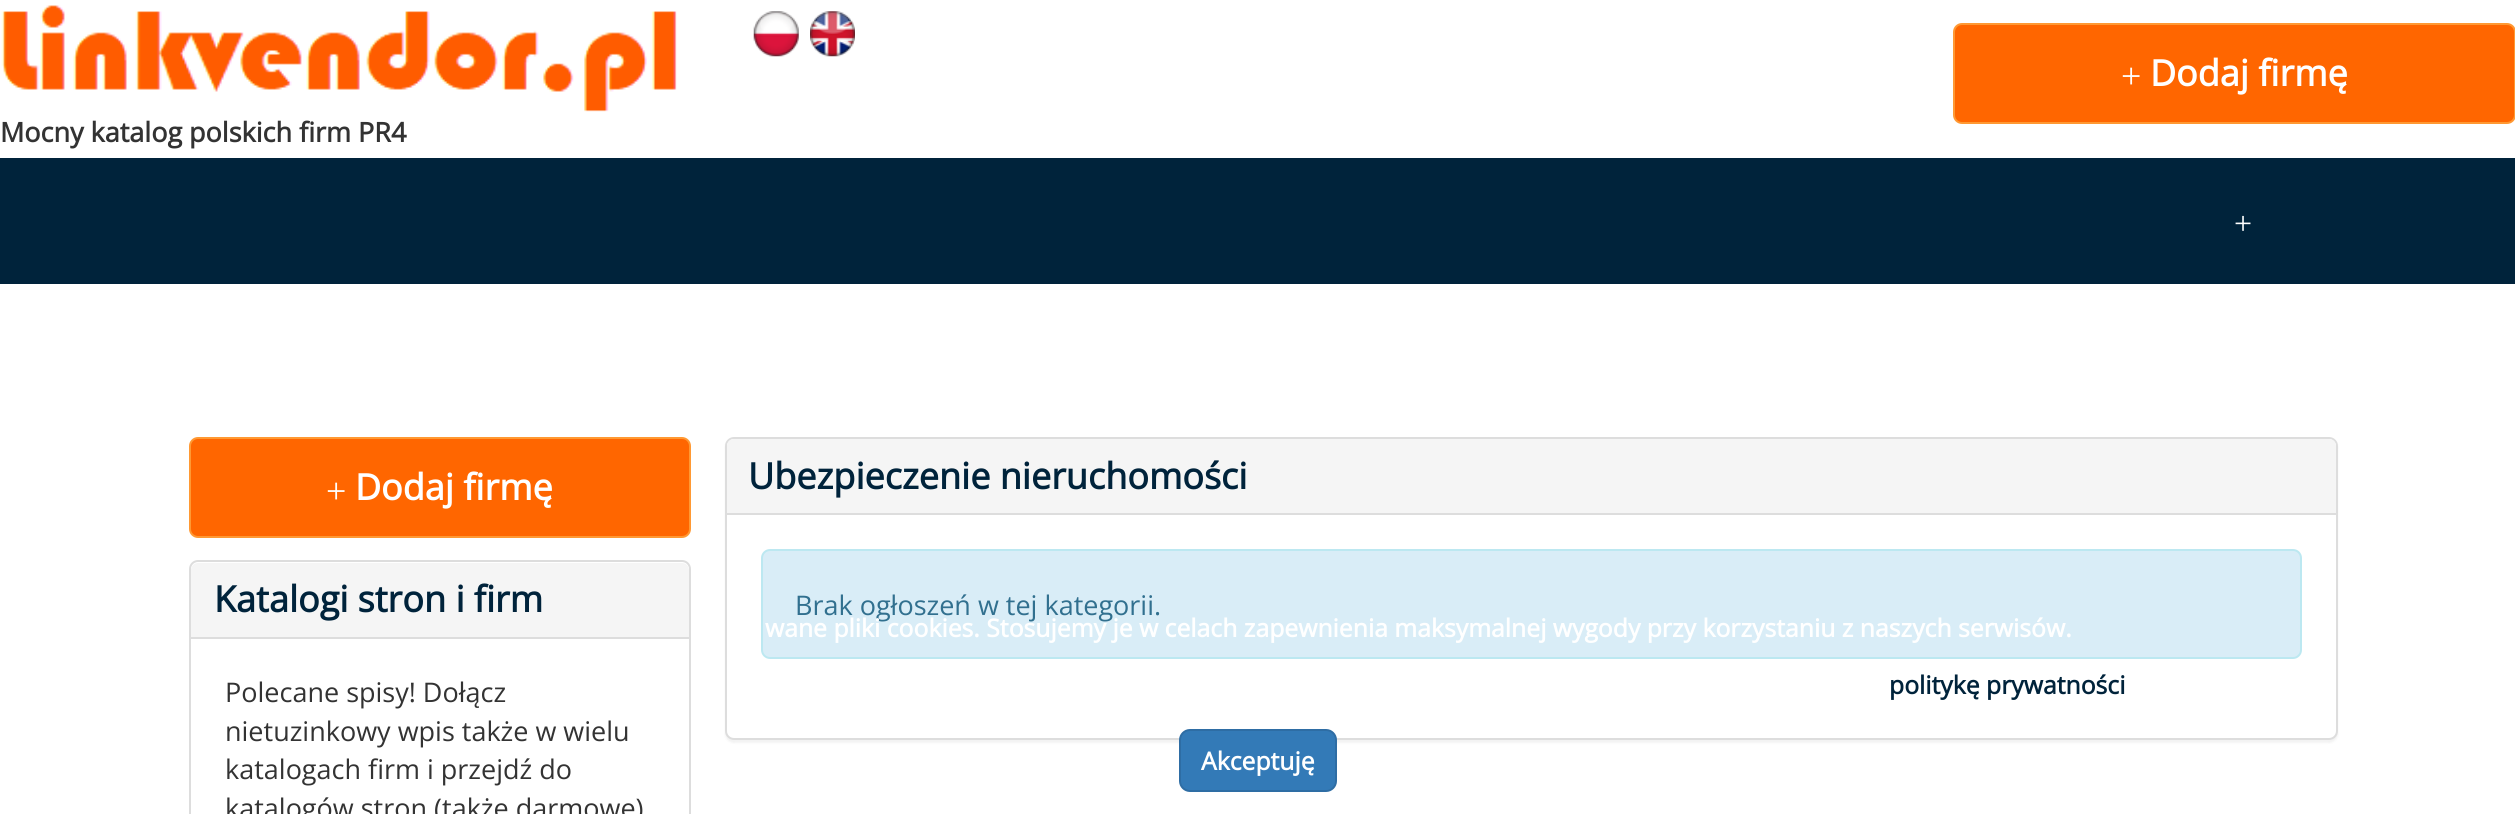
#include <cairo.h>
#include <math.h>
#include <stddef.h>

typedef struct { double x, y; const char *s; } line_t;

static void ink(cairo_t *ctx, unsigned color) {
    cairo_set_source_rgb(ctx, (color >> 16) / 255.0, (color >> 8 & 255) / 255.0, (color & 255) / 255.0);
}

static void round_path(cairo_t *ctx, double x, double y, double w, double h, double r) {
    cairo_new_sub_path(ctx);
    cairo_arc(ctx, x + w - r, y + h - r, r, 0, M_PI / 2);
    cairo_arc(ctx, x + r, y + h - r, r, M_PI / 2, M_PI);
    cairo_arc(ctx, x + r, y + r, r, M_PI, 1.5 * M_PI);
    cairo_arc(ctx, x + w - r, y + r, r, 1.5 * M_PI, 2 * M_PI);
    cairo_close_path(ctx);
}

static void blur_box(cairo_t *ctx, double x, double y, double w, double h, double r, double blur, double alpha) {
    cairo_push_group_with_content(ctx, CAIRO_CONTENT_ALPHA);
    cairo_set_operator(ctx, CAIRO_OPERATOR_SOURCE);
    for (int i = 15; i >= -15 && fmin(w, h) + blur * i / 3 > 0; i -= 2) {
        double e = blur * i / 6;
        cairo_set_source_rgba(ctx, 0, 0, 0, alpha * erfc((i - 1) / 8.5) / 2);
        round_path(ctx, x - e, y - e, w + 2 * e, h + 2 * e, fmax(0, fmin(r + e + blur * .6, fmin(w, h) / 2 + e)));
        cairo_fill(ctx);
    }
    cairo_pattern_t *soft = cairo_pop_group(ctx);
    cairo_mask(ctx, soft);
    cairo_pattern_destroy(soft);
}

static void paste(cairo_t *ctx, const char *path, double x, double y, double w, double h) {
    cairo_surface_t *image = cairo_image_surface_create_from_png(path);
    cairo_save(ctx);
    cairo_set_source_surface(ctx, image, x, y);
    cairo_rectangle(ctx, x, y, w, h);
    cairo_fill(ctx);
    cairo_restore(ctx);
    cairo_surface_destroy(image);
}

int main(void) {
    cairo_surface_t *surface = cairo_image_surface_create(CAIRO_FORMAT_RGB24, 2515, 814);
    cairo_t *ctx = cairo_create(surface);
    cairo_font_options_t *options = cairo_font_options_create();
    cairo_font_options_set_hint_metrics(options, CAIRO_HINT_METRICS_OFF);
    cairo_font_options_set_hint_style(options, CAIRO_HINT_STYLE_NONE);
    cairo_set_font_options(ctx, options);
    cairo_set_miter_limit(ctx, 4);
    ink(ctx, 0xFFFFFF);
    cairo_paint(ctx);
    paste(ctx, "media/1.png", 1, 5, 676, 107);
    paste(ctx, "media/2.png", 753, 11, 46, 46);
    paste(ctx, "media/3.png", 810, 11, 45, 46);
    ink(ctx, 0xFF6600);
    round_path(ctx, 1954, 24, 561, 99, 8);
    cairo_fill_preserve(ctx);
    ink(ctx, 0xFF9933);
    cairo_stroke(ctx);
    cairo_select_font_face(ctx, "Liberation Serif", CAIRO_FONT_SLANT_NORMAL, CAIRO_FONT_WEIGHT_NORMAL);
    cairo_set_font_size(ctx, 36);
    ink(ctx, 0xFFFFFF);
    cairo_move_to(ctx, 2121, 88);
    cairo_show_text(ctx, "+");
    cairo_select_font_face(ctx, "Open Sans", CAIRO_FONT_SLANT_NORMAL, CAIRO_FONT_WEIGHT_BOLD);
    cairo_move_to(ctx, 2150, 86);
    cairo_show_text(ctx, "Dodaj firmę");
    cairo_set_font_size(ctx, 27);
    ink(ctx, 0x333333);
    cairo_move_to(ctx, 0, 142);
    cairo_show_text(ctx, "Mocny katalog polskich firm PR4");
    ink(ctx, 0x00233B);
    cairo_rectangle(ctx, 0, 158, 2515, 126);
    cairo_fill(ctx);
    cairo_select_font_face(ctx, "Liberation Serif", CAIRO_FONT_SLANT_NORMAL, CAIRO_FONT_WEIGHT_NORMAL);
    cairo_set_font_size(ctx, 32);
    ink(ctx, 0xFFFFFF);
    cairo_move_to(ctx, 2234, 234);
    cairo_show_text(ctx, "+");
    ink(ctx, 0xFF6600);
    round_path(ctx, 190, 438, 500, 99, 8);
    cairo_fill_preserve(ctx);
    ink(ctx, 0xFF9933);
    cairo_stroke(ctx);
    cairo_set_font_size(ctx, 36);
    ink(ctx, 0xFFFFFF);
    cairo_move_to(ctx, 326, 503);
    cairo_show_text(ctx, "+");
    cairo_select_font_face(ctx, "Open Sans", CAIRO_FONT_SLANT_NORMAL, CAIRO_FONT_WEIGHT_BOLD);
    cairo_move_to(ctx, 355, 500);
    cairo_show_text(ctx, "Dodaj firmę");
    round_path(ctx, 190, 561, 500, 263, 8);
    ink(ctx, 0xDDDDDD);
    cairo_stroke(ctx);
    ink(ctx, 0xF5F5F5);
    cairo_new_path(ctx);
    cairo_move_to(ctx, 198, 563);
    cairo_line_to(ctx, 682, 563);
    cairo_curve_to(ctx, 686, 563, 689, 566, 689, 570);
    cairo_line_to(ctx, 689, 639);
    cairo_line_to(ctx, 191, 639);
    cairo_line_to(ctx, 191, 570);
    cairo_curve_to(ctx, 191, 566, 194, 563, 198, 563);
    cairo_close_path(ctx);
    cairo_fill(ctx);
    ink(ctx, 0xDDDDDD);
    cairo_rectangle(ctx, 191, 637, 498, 2);
    cairo_fill(ctx);
    ink(ctx, 0x00233B);
    cairo_move_to(ctx, 214, 612);
    cairo_show_text(ctx, "Katalogi stron i firm");
    cairo_select_font_face(ctx, "Open Sans", CAIRO_FONT_SLANT_NORMAL, CAIRO_FONT_WEIGHT_NORMAL);
    cairo_set_font_size(ctx, 27);
    ink(ctx, 0x333333);
    {
        static const line_t items[] = {
            {225, 702, "Polecane spisy! Dołącz"},
            {225, 741, "nietuzinkowy wpis także w wielu"},
            {225, 779, "katalogach firm i przejdź do"},
            {225, 818, "katalogów stron (także darmowe)"},
        };
        for (size_t i = 0; i < sizeof items / sizeof *items; i++) {
            cairo_move_to(ctx, items[i].x, items[i].y);
            cairo_show_text(ctx, items[i].s);
        }
    }
    ink(ctx, 0x000000);
    blur_box(ctx, 725, 439, 1613, 304, 9, 1, 0.05);
    ink(ctx, 0xFFFFFF);
    round_path(ctx, 726, 438, 1611, 301, 8);
    cairo_fill_preserve(ctx);
    ink(ctx, 0xDDDDDD);
    cairo_stroke(ctx);
    ink(ctx, 0xF5F5F5);
    cairo_new_path(ctx);
    cairo_move_to(ctx, 734, 439);
    cairo_line_to(ctx, 2329, 439);
    cairo_curve_to(ctx, 2333, 439, 2336, 442, 2336, 446);
    cairo_line_to(ctx, 2336, 515);
    cairo_line_to(ctx, 727, 515);
    cairo_line_to(ctx, 727, 446);
    cairo_curve_to(ctx, 727, 442, 730, 439, 734, 439);
    cairo_close_path(ctx);
    cairo_fill(ctx);
    ink(ctx, 0xDDDDDD);
    cairo_rectangle(ctx, 727, 513, 1609, 2);
    cairo_fill(ctx);
    cairo_select_font_face(ctx, "Open Sans", CAIRO_FONT_SLANT_NORMAL, CAIRO_FONT_WEIGHT_BOLD);
    cairo_set_font_size(ctx, 36);
    ink(ctx, 0x00233B);
    cairo_move_to(ctx, 748, 489);
    cairo_show_text(ctx, "Ubezpieczenie nieruchomości");
    ink(ctx, 0xD9EDF7);
    round_path(ctx, 762, 550, 1539, 108, 8);
    cairo_fill_preserve(ctx);
    ink(ctx, 0xBCE8F1);
    cairo_stroke(ctx);
    cairo_select_font_face(ctx, "Open Sans", CAIRO_FONT_SLANT_NORMAL, CAIRO_FONT_WEIGHT_NORMAL);
    cairo_set_font_size(ctx, 27);
    ink(ctx, 0x31708F);
    cairo_move_to(ctx, 795, 615);
    cairo_show_text(ctx, "Brak ogłoszeń w tej kategorii.");
    cairo_select_font_face(ctx, "Open Sans", CAIRO_FONT_SLANT_NORMAL, CAIRO_FONT_WEIGHT_BOLD);
    cairo_set_font_size(ctx, 24.75);
    ink(ctx, 0xFFFFFF);
    cairo_move_to(ctx, 765, 637);
    cairo_show_text(ctx, "wane pliki cookies. Stosujemy je w celach zapewnienia maksymalnej wygody przy korzystaniu z naszych serwisów.");
    ink(ctx, 0x00233B);
    cairo_move_to(ctx, 1889, 694);
    cairo_show_text(ctx, "politykę prywatności");
    ink(ctx, 0x337AB7);
    round_path(ctx, 1180, 730, 156, 61, 10);
    cairo_fill_preserve(ctx);
    ink(ctx, 0x2E6DA4);
    cairo_stroke(ctx);
    ink(ctx, 0xFFFFFF);
    cairo_move_to(ctx, 1201, 770);
    cairo_show_text(ctx, "Akceptuję");
    cairo_surface_write_to_png(surface, "image.png");
    cairo_font_options_destroy(options);
    cairo_destroy(ctx);
    cairo_surface_destroy(surface);
    return 0;
}
